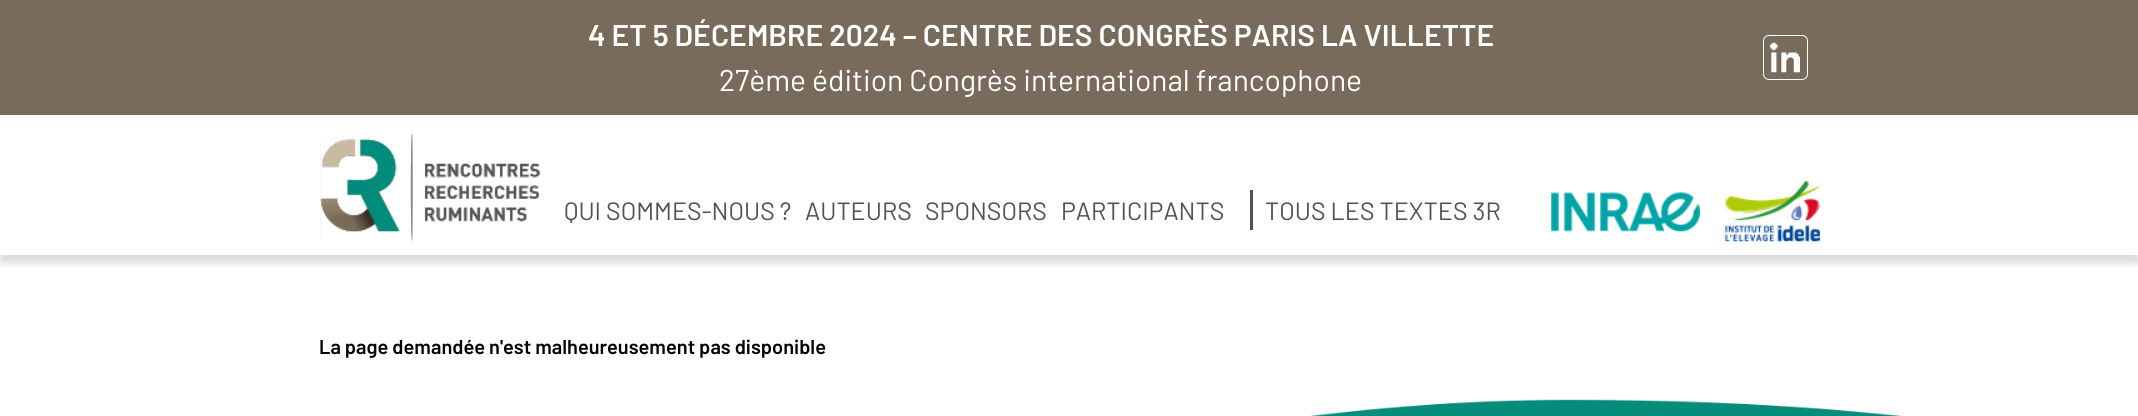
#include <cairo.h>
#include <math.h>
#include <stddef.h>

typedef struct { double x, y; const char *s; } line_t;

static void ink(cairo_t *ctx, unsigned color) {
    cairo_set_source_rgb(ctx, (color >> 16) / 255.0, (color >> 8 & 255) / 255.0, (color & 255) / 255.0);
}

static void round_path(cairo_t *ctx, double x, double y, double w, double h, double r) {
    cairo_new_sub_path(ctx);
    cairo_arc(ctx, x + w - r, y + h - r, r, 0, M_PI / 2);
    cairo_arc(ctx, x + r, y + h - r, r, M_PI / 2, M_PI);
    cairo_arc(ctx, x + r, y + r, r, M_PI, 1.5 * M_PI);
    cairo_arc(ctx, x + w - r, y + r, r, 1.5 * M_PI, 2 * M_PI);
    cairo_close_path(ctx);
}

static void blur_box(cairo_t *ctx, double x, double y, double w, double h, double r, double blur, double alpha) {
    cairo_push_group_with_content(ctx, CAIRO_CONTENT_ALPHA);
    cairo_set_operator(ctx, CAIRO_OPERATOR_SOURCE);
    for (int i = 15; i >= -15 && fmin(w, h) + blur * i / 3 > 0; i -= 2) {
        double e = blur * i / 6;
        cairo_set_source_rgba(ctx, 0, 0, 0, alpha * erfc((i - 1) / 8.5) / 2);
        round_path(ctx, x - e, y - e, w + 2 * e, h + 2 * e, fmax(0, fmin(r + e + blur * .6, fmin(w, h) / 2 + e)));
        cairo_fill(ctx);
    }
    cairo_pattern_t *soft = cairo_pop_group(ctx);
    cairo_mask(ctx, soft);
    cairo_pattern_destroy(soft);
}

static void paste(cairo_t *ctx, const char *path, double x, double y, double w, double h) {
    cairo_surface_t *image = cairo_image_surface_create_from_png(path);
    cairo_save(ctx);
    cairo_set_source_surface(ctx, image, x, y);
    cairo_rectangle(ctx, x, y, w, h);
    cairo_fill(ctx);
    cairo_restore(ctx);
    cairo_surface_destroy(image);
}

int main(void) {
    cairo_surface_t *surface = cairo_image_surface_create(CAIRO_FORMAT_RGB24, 2138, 416);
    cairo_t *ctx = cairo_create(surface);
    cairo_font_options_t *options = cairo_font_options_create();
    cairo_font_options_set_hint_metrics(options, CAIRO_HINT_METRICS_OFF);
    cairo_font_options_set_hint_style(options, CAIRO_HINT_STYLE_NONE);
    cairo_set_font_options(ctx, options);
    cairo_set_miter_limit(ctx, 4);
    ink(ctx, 0xFFFFFF);
    cairo_paint(ctx);
    cairo_save(ctx);
    cairo_rectangle(ctx, 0, 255, 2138, 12);
    cairo_clip(ctx);
    ink(ctx, 0x000000);
    blur_box(ctx, 0, 8, 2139, 255, 0, 4, 0.15);
    cairo_restore(ctx);
    ink(ctx, 0x786B5B);
    cairo_rectangle(ctx, 0, 0, 2138, 115);
    cairo_fill(ctx);
    cairo_select_font_face(ctx, "Barlow SemiBold", CAIRO_FONT_SLANT_NORMAL, CAIRO_FONT_WEIGHT_NORMAL);
    cairo_set_font_size(ctx, 30);
    ink(ctx, 0xFFFFFF);
    cairo_move_to(ctx, 588, 46);
    cairo_show_text(ctx, "4 ET 5 DÉCEMBRE 2024 – CENTRE DES CONGRÈS PARIS LA VILLETTE");
    cairo_select_font_face(ctx, "Barlow", CAIRO_FONT_SLANT_NORMAL, CAIRO_FONT_WEIGHT_NORMAL);
    cairo_move_to(ctx, 719, 91);
    cairo_show_text(ctx, "27ème édition Congrès international francophone");
    round_path(ctx, 1763.5, 35.5, 44, 44, 5.5);
    cairo_set_line_width(ctx, 1);
    cairo_stroke(ctx);
    paste(ctx, "media/1.png", 1770, 42, 30, 31);
    paste(ctx, "media/2.png", 320, 133, 220, 109);
    cairo_set_font_size(ctx, 25);
    ink(ctx, 0x525252);
    {
        static const line_t items[] = {
            {564, 220, "QUI SOMMES-NOUS ?"},
            {805, 220, "AUTEURS"},
            {925, 220, "SPONSORS"},
            {1061, 220, "PARTICIPANTS"},
        };
        for (size_t i = 0; i < sizeof items / sizeof *items; i++) {
            cairo_move_to(ctx, items[i].x, items[i].y);
            cairo_show_text(ctx, items[i].s);
        }
    }
    cairo_rectangle(ctx, 1250, 190, 3, 40);
    cairo_fill(ctx);
    cairo_move_to(ctx, 1265, 220);
    cairo_show_text(ctx, "TOUS LES TEXTES 3R");
    paste(ctx, "media/3.png", 1551, 192, 149, 40);
    paste(ctx, "media/4.png", 1725, 181, 95, 61);
    cairo_select_font_face(ctx, "Barlow SemiBold", CAIRO_FONT_SLANT_NORMAL, CAIRO_FONT_WEIGHT_NORMAL);
    cairo_set_font_size(ctx, 20);
    ink(ctx, 0x000000);
    cairo_move_to(ctx, 319, 354);
    cairo_show_text(ctx, "La page demandée n'est malheureusement pas disponible");
    paste(ctx, "media/5.png", 1310, 399, 591, 17);
    cairo_surface_write_to_png(surface, "image.png");
    cairo_font_options_destroy(options);
    cairo_destroy(ctx);
    cairo_surface_destroy(surface);
    return 0;
}
